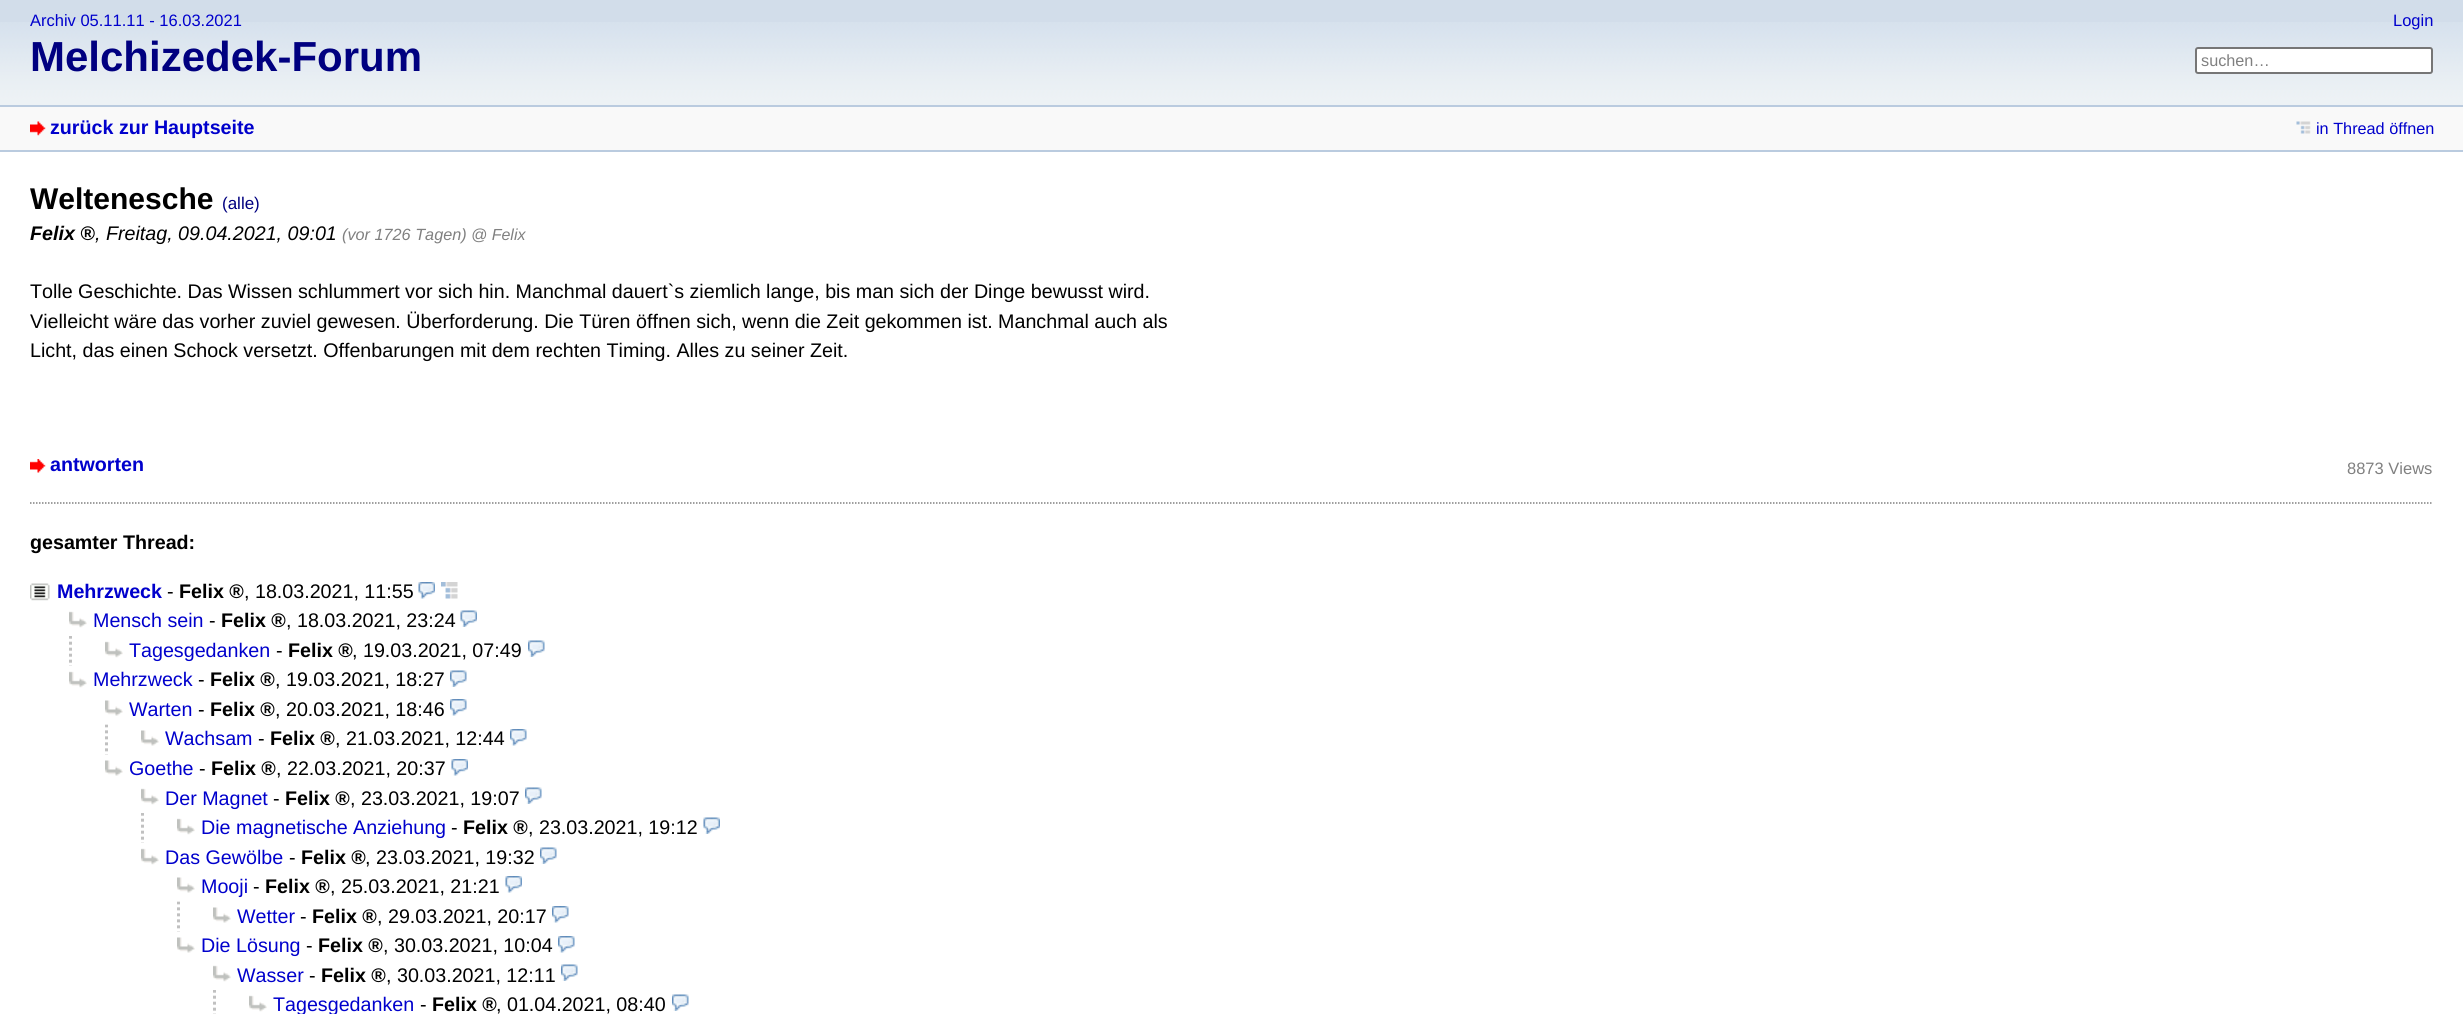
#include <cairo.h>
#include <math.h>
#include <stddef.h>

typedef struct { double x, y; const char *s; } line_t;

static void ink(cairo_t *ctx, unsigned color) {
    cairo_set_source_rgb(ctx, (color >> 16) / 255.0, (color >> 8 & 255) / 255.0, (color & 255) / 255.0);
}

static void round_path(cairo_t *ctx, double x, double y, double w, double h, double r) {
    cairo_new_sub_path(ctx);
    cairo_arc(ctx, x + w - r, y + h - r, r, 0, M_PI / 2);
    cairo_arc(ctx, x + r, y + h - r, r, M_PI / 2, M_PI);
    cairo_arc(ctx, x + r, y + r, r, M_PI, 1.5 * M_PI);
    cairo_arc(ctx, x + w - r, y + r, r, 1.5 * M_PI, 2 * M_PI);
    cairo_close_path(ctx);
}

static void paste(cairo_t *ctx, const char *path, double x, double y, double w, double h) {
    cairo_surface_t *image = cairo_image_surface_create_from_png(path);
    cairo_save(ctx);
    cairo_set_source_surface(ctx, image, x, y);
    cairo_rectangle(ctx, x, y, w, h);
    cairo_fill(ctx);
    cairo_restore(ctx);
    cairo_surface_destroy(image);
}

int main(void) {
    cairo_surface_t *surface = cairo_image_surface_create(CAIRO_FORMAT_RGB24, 2463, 1014);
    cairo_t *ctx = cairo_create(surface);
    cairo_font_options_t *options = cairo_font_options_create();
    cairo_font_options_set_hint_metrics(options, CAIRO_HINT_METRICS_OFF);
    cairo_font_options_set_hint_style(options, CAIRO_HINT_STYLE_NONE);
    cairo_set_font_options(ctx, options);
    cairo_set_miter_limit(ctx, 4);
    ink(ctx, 0xF9F9F9);
    cairo_paint(ctx);
    ink(ctx, 0xD2DDEA);
    cairo_rectangle(ctx, 0, 0, 2463, 22);
    cairo_fill(ctx);
    paste(ctx, "media/1.png", 0, 22, 2463, 83);
    cairo_select_font_face(ctx, "Liberation Sans", CAIRO_FONT_SLANT_NORMAL, CAIRO_FONT_WEIGHT_NORMAL);
    cairo_set_font_size(ctx, 16.5);
    ink(ctx, 0x0000CC);
    cairo_move_to(ctx, 30, 26);
    cairo_show_text(ctx, "Archiv 05.11.11 - 16.03.2021");
    cairo_select_font_face(ctx, "Liberation Sans", CAIRO_FONT_SLANT_NORMAL, CAIRO_FONT_WEIGHT_BOLD);
    cairo_set_font_size(ctx, 42);
    ink(ctx, 0x000080);
    cairo_move_to(ctx, 30, 71);
    cairo_show_text(ctx, "Melchizedek-Forum");
    cairo_select_font_face(ctx, "Liberation Sans", CAIRO_FONT_SLANT_NORMAL, CAIRO_FONT_WEIGHT_NORMAL);
    cairo_set_font_size(ctx, 16.5);
    ink(ctx, 0x0000CC);
    cairo_move_to(ctx, 2393, 26);
    cairo_show_text(ctx, "Login");
    ink(ctx, 0xFFFFFF);
    round_path(ctx, 2196, 48, 236, 25, 2);
    cairo_fill_preserve(ctx);
    ink(ctx, 0x767676);
    cairo_stroke(ctx);
    cairo_set_font_size(ctx, 16.25);
    ink(ctx, 0x808080);
    cairo_move_to(ctx, 2201, 66);
    cairo_show_text(ctx, "suchen…");
    ink(ctx, 0xBACBDF);
    cairo_rectangle(ctx, 0, 105, 2463, 2);
    cairo_fill(ctx);
    cairo_rectangle(ctx, 0, 150, 2463, 2);
    cairo_fill(ctx);
    paste(ctx, "media/2.png", 30, 121, 16, 15);
    cairo_select_font_face(ctx, "Liberation Sans", CAIRO_FONT_SLANT_NORMAL, CAIRO_FONT_WEIGHT_BOLD);
    cairo_set_font_size(ctx, 19.68);
    ink(ctx, 0x0000CC);
    cairo_move_to(ctx, 50, 134);
    cairo_show_text(ctx, "zurück zur Hauptseite");
    paste(ctx, "media/3.png", 2296, 121, 15, 13);
    cairo_select_font_face(ctx, "Liberation Sans", CAIRO_FONT_SLANT_NORMAL, CAIRO_FONT_WEIGHT_NORMAL);
    cairo_set_font_size(ctx, 16.25);
    cairo_move_to(ctx, 2316, 134);
    cairo_show_text(ctx, "in Thread öffnen");
    ink(ctx, 0xFFFFFF);
    cairo_rectangle(ctx, 0, 152, 2463, 862);
    cairo_fill(ctx);
    cairo_select_font_face(ctx, "Liberation Sans", CAIRO_FONT_SLANT_NORMAL, CAIRO_FONT_WEIGHT_BOLD);
    cairo_set_font_size(ctx, 30);
    ink(ctx, 0x000000);
    cairo_move_to(ctx, 30, 209);
    cairo_show_text(ctx, "Weltenesche");
    cairo_select_font_face(ctx, "Liberation Sans", CAIRO_FONT_SLANT_NORMAL, CAIRO_FONT_WEIGHT_NORMAL);
    cairo_set_font_size(ctx, 17);
    ink(ctx, 0x000080);
    cairo_move_to(ctx, 222, 209);
    cairo_show_text(ctx, "(alle)");
    cairo_select_font_face(ctx, "Liberation Sans", CAIRO_FONT_SLANT_ITALIC, CAIRO_FONT_WEIGHT_BOLD);
    cairo_set_font_size(ctx, 19.68);
    ink(ctx, 0x000000);
    cairo_move_to(ctx, 30, 240);
    cairo_show_text(ctx, "Felix ®");
    cairo_select_font_face(ctx, "Liberation Sans", CAIRO_FONT_SLANT_ITALIC, CAIRO_FONT_WEIGHT_NORMAL);
    cairo_move_to(ctx, 95, 240);
    cairo_show_text(ctx, ", Freitag, 09.04.2021, 09:01");
    cairo_set_font_size(ctx, 16.25);
    ink(ctx, 0x808080);
    cairo_move_to(ctx, 342, 240);
    cairo_show_text(ctx, "(vor 1726 Tagen)");
    cairo_set_font_size(ctx, 16);
    cairo_move_to(ctx, 471, 240);
    cairo_show_text(ctx, "@ Felix");
    cairo_select_font_face(ctx, "Liberation Sans", CAIRO_FONT_SLANT_NORMAL, CAIRO_FONT_WEIGHT_NORMAL);
    cairo_set_font_size(ctx, 19.68);
    ink(ctx, 0x000000);
    {
        static const line_t items[] = {
            {30, 298, "Tolle Geschichte. Das Wissen schlummert vor sich hin. Manchmal dauert`s ziemlich lange, bis man sich der Dinge bewusst wird."},
            {30, 328, "Vielleicht wäre das vorher zuviel gewesen. Überforderung. Die Türen öffnen sich, wenn die Zeit gekommen ist. Manchmal auch als"},
            {30, 357, "Licht, das einen Schock versetzt. Offenbarungen mit dem rechten Timing. Alles zu seiner Zeit."},
        };
        for (size_t i = 0; i < sizeof items / sizeof *items; i++) {
            cairo_move_to(ctx, items[i].x, items[i].y);
            cairo_show_text(ctx, items[i].s);
        }
    }
    paste(ctx, "media/4.png", 30, 459, 16, 14);
    cairo_select_font_face(ctx, "Liberation Sans", CAIRO_FONT_SLANT_NORMAL, CAIRO_FONT_WEIGHT_BOLD);
    ink(ctx, 0x0000CC);
    cairo_move_to(ctx, 50, 471);
    cairo_show_text(ctx, "antworten");
    cairo_select_font_face(ctx, "Liberation Sans", CAIRO_FONT_SLANT_NORMAL, CAIRO_FONT_WEIGHT_NORMAL);
    cairo_set_font_size(ctx, 16.5);
    ink(ctx, 0x808080);
    cairo_move_to(ctx, 2347, 474);
    cairo_show_text(ctx, "8873 Views");
    cairo_new_path(ctx);
    cairo_move_to(ctx, 30, 503);
    cairo_line_to(ctx, 2433, 503);
    cairo_set_line_width(ctx, 1.5);
    cairo_set_dash(ctx, (double[]){1.5, 1.5}, 2, 0);
    cairo_stroke(ctx);
    cairo_select_font_face(ctx, "Liberation Sans", CAIRO_FONT_SLANT_NORMAL, CAIRO_FONT_WEIGHT_BOLD);
    cairo_set_font_size(ctx, 19.68);
    ink(ctx, 0x000000);
    cairo_move_to(ctx, 30, 549);
    cairo_show_text(ctx, "gesamter Thread:");
    paste(ctx, "media/5.png", 30, 583, 20, 18);
    ink(ctx, 0x0000CC);
    cairo_move_to(ctx, 57, 598);
    cairo_show_text(ctx, "Mehrzweck");
    cairo_select_font_face(ctx, "Liberation Sans", CAIRO_FONT_SLANT_NORMAL, CAIRO_FONT_WEIGHT_NORMAL);
    ink(ctx, 0x000000);
    cairo_move_to(ctx, 167, 598);
    cairo_show_text(ctx, "-");
    cairo_select_font_face(ctx, "Liberation Sans", CAIRO_FONT_SLANT_NORMAL, CAIRO_FONT_WEIGHT_BOLD);
    cairo_move_to(ctx, 179, 598);
    cairo_show_text(ctx, "Felix ®");
    cairo_select_font_face(ctx, "Liberation Sans", CAIRO_FONT_SLANT_NORMAL, CAIRO_FONT_WEIGHT_NORMAL);
    cairo_move_to(ctx, 244, 598);
    cairo_show_text(ctx, ", 18.03.2021, 11:55");
    paste(ctx, "media/6.png", 418, 582, 17, 17);
    paste(ctx, "media/7.png", 441, 582, 17, 17);
    paste(ctx, "media/8.png", 69, 611, 18, 17);
    ink(ctx, 0x0000CC);
    cairo_move_to(ctx, 93, 627);
    cairo_show_text(ctx, "Mensch sein");
    ink(ctx, 0x000000);
    cairo_move_to(ctx, 209, 627);
    cairo_show_text(ctx, "-");
    cairo_select_font_face(ctx, "Liberation Sans", CAIRO_FONT_SLANT_NORMAL, CAIRO_FONT_WEIGHT_BOLD);
    cairo_move_to(ctx, 221, 627);
    cairo_show_text(ctx, "Felix ®");
    cairo_select_font_face(ctx, "Liberation Sans", CAIRO_FONT_SLANT_NORMAL, CAIRO_FONT_WEIGHT_NORMAL);
    cairo_move_to(ctx, 286, 627);
    cairo_show_text(ctx, ", 18.03.2021, 23:24");
    paste(ctx, "media/9.png", 460, 610, 17, 17);
    paste(ctx, "media/10.png", 69, 636, 3, 30);
    paste(ctx, "media/8.png", 105, 641, 18, 17);
    ink(ctx, 0x0000CC);
    cairo_move_to(ctx, 129, 657);
    cairo_show_text(ctx, "Tagesgedanken");
    ink(ctx, 0x000000);
    cairo_move_to(ctx, 276, 657);
    cairo_show_text(ctx, "-");
    cairo_select_font_face(ctx, "Liberation Sans", CAIRO_FONT_SLANT_NORMAL, CAIRO_FONT_WEIGHT_BOLD);
    cairo_move_to(ctx, 288, 657);
    cairo_show_text(ctx, "Felix ®");
    cairo_select_font_face(ctx, "Liberation Sans", CAIRO_FONT_SLANT_NORMAL, CAIRO_FONT_WEIGHT_NORMAL);
    cairo_move_to(ctx, 352, 657);
    cairo_show_text(ctx, ", 19.03.2021, 07:49");
    paste(ctx, "media/11.png", 528, 640, 17, 17);
    paste(ctx, "media/8.png", 69, 671, 18, 17);
    ink(ctx, 0x0000CC);
    cairo_move_to(ctx, 93, 686);
    cairo_show_text(ctx, "Mehrzweck");
    ink(ctx, 0x000000);
    cairo_move_to(ctx, 198, 686);
    cairo_show_text(ctx, "-");
    cairo_select_font_face(ctx, "Liberation Sans", CAIRO_FONT_SLANT_NORMAL, CAIRO_FONT_WEIGHT_BOLD);
    cairo_move_to(ctx, 210, 686);
    cairo_show_text(ctx, "Felix ®");
    cairo_select_font_face(ctx, "Liberation Sans", CAIRO_FONT_SLANT_NORMAL, CAIRO_FONT_WEIGHT_NORMAL);
    cairo_move_to(ctx, 275, 686);
    cairo_show_text(ctx, ", 19.03.2021, 18:27");
    paste(ctx, "media/11.png", 450, 670, 17, 17);
    paste(ctx, "media/12.png", 105, 700, 18, 16);
    ink(ctx, 0x0000CC);
    cairo_move_to(ctx, 129, 716);
    cairo_show_text(ctx, "Warten");
    ink(ctx, 0x000000);
    cairo_move_to(ctx, 198, 716);
    cairo_show_text(ctx, "-");
    cairo_select_font_face(ctx, "Liberation Sans", CAIRO_FONT_SLANT_NORMAL, CAIRO_FONT_WEIGHT_BOLD);
    cairo_move_to(ctx, 210, 716);
    cairo_show_text(ctx, "Felix ®");
    cairo_select_font_face(ctx, "Liberation Sans", CAIRO_FONT_SLANT_NORMAL, CAIRO_FONT_WEIGHT_NORMAL);
    cairo_move_to(ctx, 275, 716);
    cairo_show_text(ctx, ", 20.03.2021, 18:46");
    paste(ctx, "media/13.png", 450, 699, 17, 17);
    paste(ctx, "media/14.png", 105, 724, 3, 31);
    paste(ctx, "media/12.png", 141, 730, 18, 16);
    ink(ctx, 0x0000CC);
    cairo_move_to(ctx, 165, 745);
    cairo_show_text(ctx, "Wachsam");
    ink(ctx, 0x000000);
    cairo_move_to(ctx, 258, 745);
    cairo_show_text(ctx, "-");
    cairo_select_font_face(ctx, "Liberation Sans", CAIRO_FONT_SLANT_NORMAL, CAIRO_FONT_WEIGHT_BOLD);
    cairo_move_to(ctx, 270, 745);
    cairo_show_text(ctx, "Felix ®");
    cairo_select_font_face(ctx, "Liberation Sans", CAIRO_FONT_SLANT_NORMAL, CAIRO_FONT_WEIGHT_NORMAL);
    cairo_move_to(ctx, 335, 745);
    cairo_show_text(ctx, ", 21.03.2021, 12:44");
    paste(ctx, "media/15.png", 510, 729, 17, 17);
    paste(ctx, "media/12.png", 105, 760, 18, 16);
    ink(ctx, 0x0000CC);
    cairo_move_to(ctx, 129, 775);
    cairo_show_text(ctx, "Goethe");
    ink(ctx, 0x000000);
    cairo_move_to(ctx, 199, 775);
    cairo_show_text(ctx, "-");
    cairo_select_font_face(ctx, "Liberation Sans", CAIRO_FONT_SLANT_NORMAL, CAIRO_FONT_WEIGHT_BOLD);
    cairo_move_to(ctx, 211, 775);
    cairo_show_text(ctx, "Felix ®");
    cairo_select_font_face(ctx, "Liberation Sans", CAIRO_FONT_SLANT_NORMAL, CAIRO_FONT_WEIGHT_NORMAL);
    cairo_move_to(ctx, 276, 775);
    cairo_show_text(ctx, ", 22.03.2021, 20:37");
    paste(ctx, "media/16.png", 451, 759, 17, 17);
    paste(ctx, "media/8.png", 141, 788, 18, 17);
    ink(ctx, 0x0000CC);
    cairo_move_to(ctx, 165, 805);
    cairo_show_text(ctx, "Der Magnet");
    ink(ctx, 0x000000);
    cairo_move_to(ctx, 273, 805);
    cairo_show_text(ctx, "-");
    cairo_select_font_face(ctx, "Liberation Sans", CAIRO_FONT_SLANT_NORMAL, CAIRO_FONT_WEIGHT_BOLD);
    cairo_move_to(ctx, 285, 805);
    cairo_show_text(ctx, "Felix ®");
    cairo_select_font_face(ctx, "Liberation Sans", CAIRO_FONT_SLANT_NORMAL, CAIRO_FONT_WEIGHT_NORMAL);
    cairo_move_to(ctx, 350, 805);
    cairo_show_text(ctx, ", 23.03.2021, 19:07");
    paste(ctx, "media/11.png", 525, 787, 17, 17);
    paste(ctx, "media/10.png", 141, 813, 3, 30);
    paste(ctx, "media/8.png", 177, 818, 18, 17);
    ink(ctx, 0x0000CC);
    cairo_move_to(ctx, 201, 834);
    cairo_show_text(ctx, "Die magnetische Anziehung");
    ink(ctx, 0x000000);
    cairo_move_to(ctx, 451, 834);
    cairo_show_text(ctx, "-");
    cairo_select_font_face(ctx, "Liberation Sans", CAIRO_FONT_SLANT_NORMAL, CAIRO_FONT_WEIGHT_BOLD);
    cairo_move_to(ctx, 463, 834);
    cairo_show_text(ctx, "Felix ®");
    cairo_select_font_face(ctx, "Liberation Sans", CAIRO_FONT_SLANT_NORMAL, CAIRO_FONT_WEIGHT_NORMAL);
    cairo_move_to(ctx, 528, 834);
    cairo_show_text(ctx, ", 23.03.2021, 19:12");
    paste(ctx, "media/17.png", 703, 817, 17, 17);
    paste(ctx, "media/8.png", 141, 848, 18, 17);
    ink(ctx, 0x0000CC);
    cairo_move_to(ctx, 165, 864);
    cairo_show_text(ctx, "Das Gewölbe");
    ink(ctx, 0x000000);
    cairo_move_to(ctx, 289, 864);
    cairo_show_text(ctx, "-");
    cairo_select_font_face(ctx, "Liberation Sans", CAIRO_FONT_SLANT_NORMAL, CAIRO_FONT_WEIGHT_BOLD);
    cairo_move_to(ctx, 301, 864);
    cairo_show_text(ctx, "Felix ®");
    cairo_select_font_face(ctx, "Liberation Sans", CAIRO_FONT_SLANT_NORMAL, CAIRO_FONT_WEIGHT_NORMAL);
    cairo_move_to(ctx, 365, 864);
    cairo_show_text(ctx, ", 23.03.2021, 19:32");
    paste(ctx, "media/18.png", 540, 847, 17, 17);
    paste(ctx, "media/12.png", 177, 877, 18, 16);
    ink(ctx, 0x0000CC);
    cairo_move_to(ctx, 201, 893);
    cairo_show_text(ctx, "Mooji");
    ink(ctx, 0x000000);
    cairo_move_to(ctx, 253, 893);
    cairo_show_text(ctx, "-");
    cairo_select_font_face(ctx, "Liberation Sans", CAIRO_FONT_SLANT_NORMAL, CAIRO_FONT_WEIGHT_BOLD);
    cairo_move_to(ctx, 265, 893);
    cairo_show_text(ctx, "Felix ®");
    cairo_select_font_face(ctx, "Liberation Sans", CAIRO_FONT_SLANT_NORMAL, CAIRO_FONT_WEIGHT_NORMAL);
    cairo_move_to(ctx, 330, 893);
    cairo_show_text(ctx, ", 25.03.2021, 21:21");
    paste(ctx, "media/16.png", 505, 876, 17, 17);
    paste(ctx, "media/14.png", 177, 901, 3, 31);
    paste(ctx, "media/12.png", 213, 907, 18, 16);
    ink(ctx, 0x0000CC);
    cairo_move_to(ctx, 237, 923);
    cairo_show_text(ctx, "Wetter");
    ink(ctx, 0x000000);
    cairo_move_to(ctx, 300, 923);
    cairo_show_text(ctx, "-");
    cairo_select_font_face(ctx, "Liberation Sans", CAIRO_FONT_SLANT_NORMAL, CAIRO_FONT_WEIGHT_BOLD);
    cairo_move_to(ctx, 312, 923);
    cairo_show_text(ctx, "Felix ®");
    cairo_select_font_face(ctx, "Liberation Sans", CAIRO_FONT_SLANT_NORMAL, CAIRO_FONT_WEIGHT_NORMAL);
    cairo_move_to(ctx, 377, 923);
    cairo_show_text(ctx, ", 29.03.2021, 20:17");
    paste(ctx, "media/15.png", 552, 906, 17, 17);
    paste(ctx, "media/12.png", 177, 937, 18, 16);
    ink(ctx, 0x0000CC);
    cairo_move_to(ctx, 201, 952);
    cairo_show_text(ctx, "Die Lösung");
    ink(ctx, 0x000000);
    cairo_move_to(ctx, 306, 952);
    cairo_show_text(ctx, "-");
    cairo_select_font_face(ctx, "Liberation Sans", CAIRO_FONT_SLANT_NORMAL, CAIRO_FONT_WEIGHT_BOLD);
    cairo_move_to(ctx, 318, 952);
    cairo_show_text(ctx, "Felix ®");
    cairo_select_font_face(ctx, "Liberation Sans", CAIRO_FONT_SLANT_NORMAL, CAIRO_FONT_WEIGHT_NORMAL);
    cairo_move_to(ctx, 383, 952);
    cairo_show_text(ctx, ", 30.03.2021, 10:04");
    paste(ctx, "media/13.png", 558, 936, 17, 17);
    paste(ctx, "media/8.png", 213, 965, 18, 17);
    ink(ctx, 0x0000CC);
    cairo_move_to(ctx, 237, 982);
    cairo_show_text(ctx, "Wasser");
    ink(ctx, 0x000000);
    cairo_move_to(ctx, 309, 982);
    cairo_show_text(ctx, "-");
    cairo_select_font_face(ctx, "Liberation Sans", CAIRO_FONT_SLANT_NORMAL, CAIRO_FONT_WEIGHT_BOLD);
    cairo_move_to(ctx, 321, 982);
    cairo_show_text(ctx, "Felix ®");
    cairo_select_font_face(ctx, "Liberation Sans", CAIRO_FONT_SLANT_NORMAL, CAIRO_FONT_WEIGHT_NORMAL);
    cairo_move_to(ctx, 386, 982);
    cairo_show_text(ctx, ", 30.03.2021, 12:11");
    paste(ctx, "media/11.png", 561, 964, 17, 17);
    paste(ctx, "media/19.png", 213, 990, 3, 24);
    paste(ctx, "media/8.png", 249, 995, 18, 17);
    ink(ctx, 0x0000CC);
    cairo_move_to(ctx, 273, 1011);
    cairo_show_text(ctx, "Tagesgedanken");
    ink(ctx, 0x000000);
    cairo_move_to(ctx, 420, 1011);
    cairo_show_text(ctx, "-");
    cairo_select_font_face(ctx, "Liberation Sans", CAIRO_FONT_SLANT_NORMAL, CAIRO_FONT_WEIGHT_BOLD);
    cairo_move_to(ctx, 432, 1011);
    cairo_show_text(ctx, "Felix ®");
    cairo_select_font_face(ctx, "Liberation Sans", CAIRO_FONT_SLANT_NORMAL, CAIRO_FONT_WEIGHT_NORMAL);
    cairo_move_to(ctx, 496, 1011);
    cairo_show_text(ctx, ", 01.04.2021, 08:40");
    paste(ctx, "media/18.png", 672, 994, 17, 17);
    cairo_surface_write_to_png(surface, "image.png");
    cairo_font_options_destroy(options);
    cairo_destroy(ctx);
    cairo_surface_destroy(surface);
    return 0;
}
